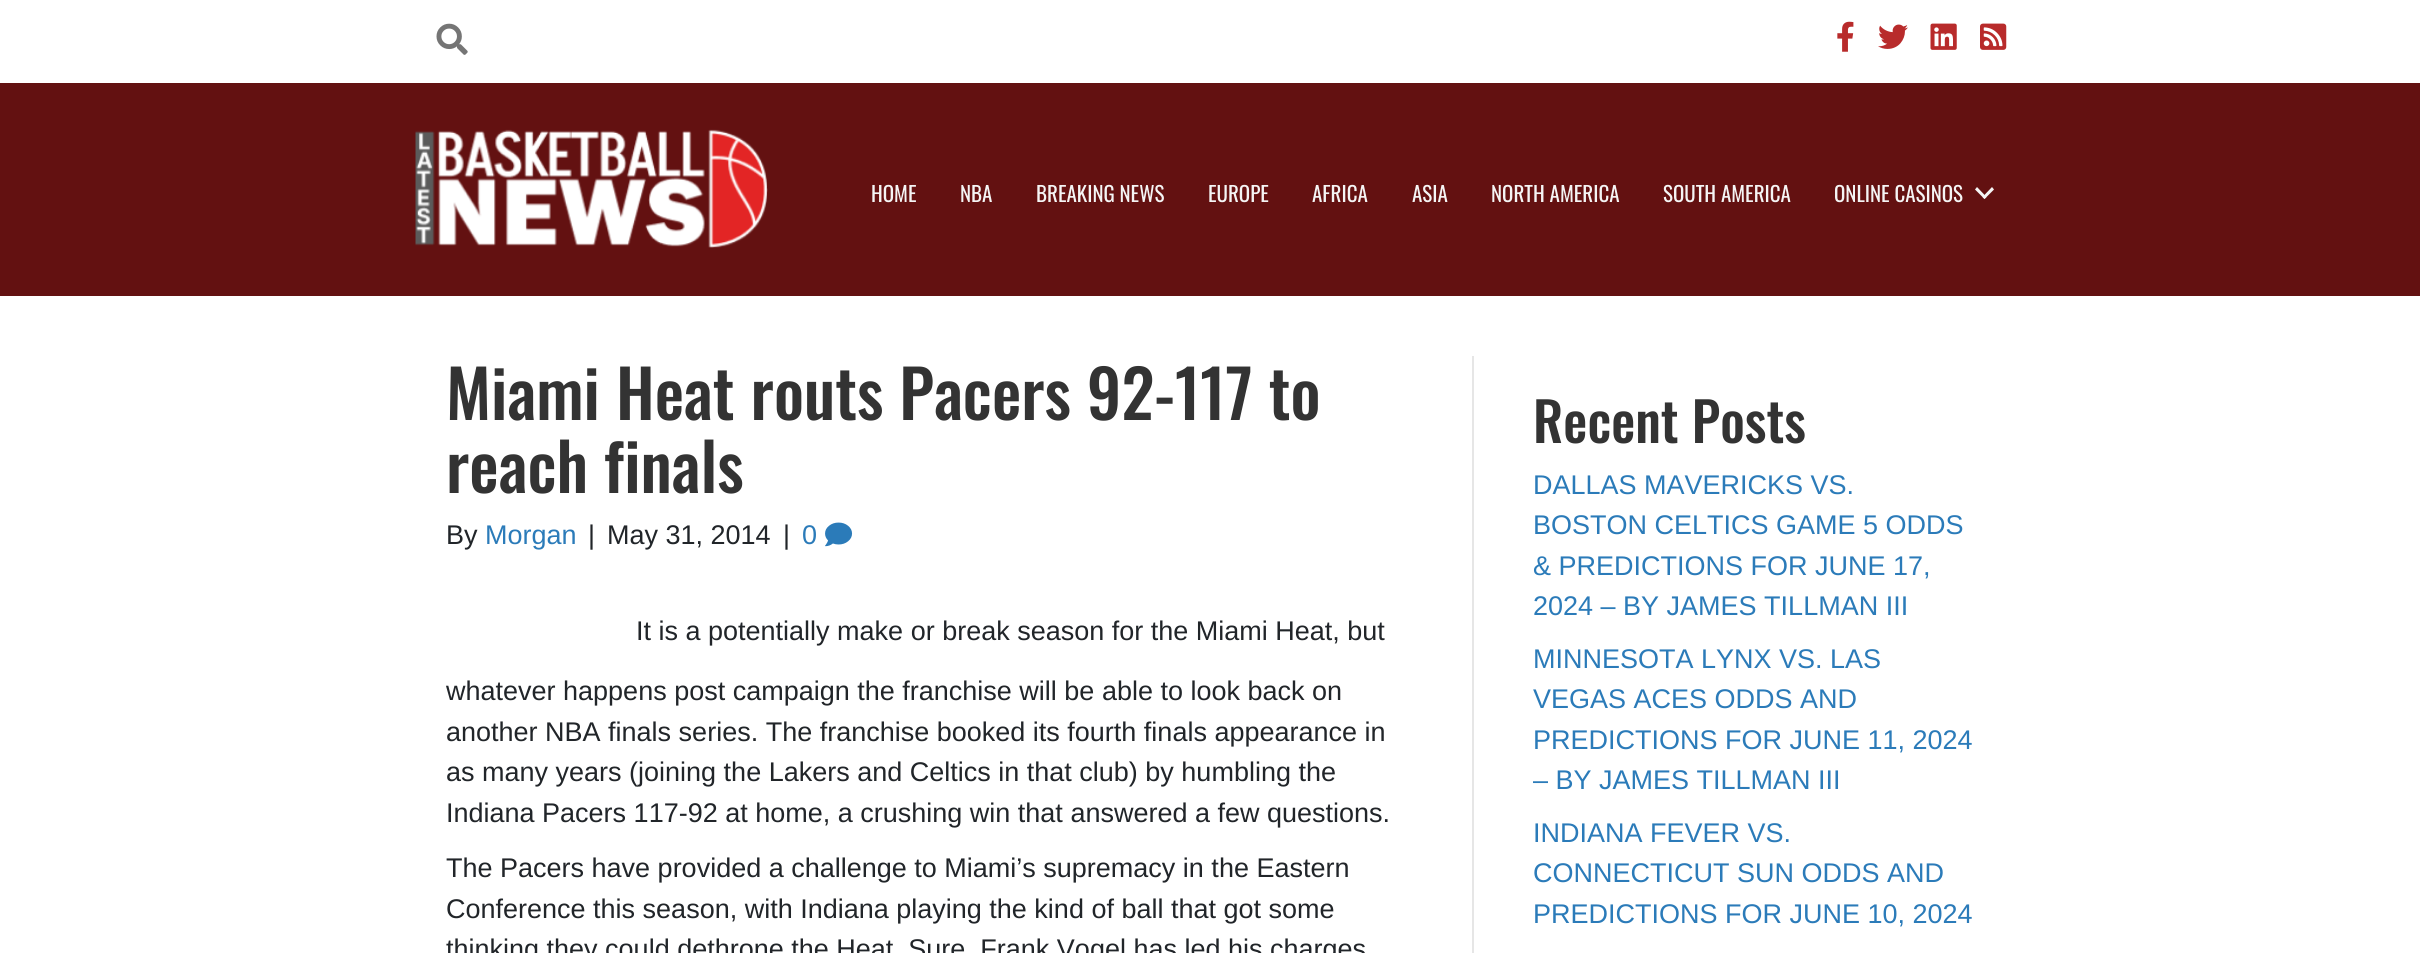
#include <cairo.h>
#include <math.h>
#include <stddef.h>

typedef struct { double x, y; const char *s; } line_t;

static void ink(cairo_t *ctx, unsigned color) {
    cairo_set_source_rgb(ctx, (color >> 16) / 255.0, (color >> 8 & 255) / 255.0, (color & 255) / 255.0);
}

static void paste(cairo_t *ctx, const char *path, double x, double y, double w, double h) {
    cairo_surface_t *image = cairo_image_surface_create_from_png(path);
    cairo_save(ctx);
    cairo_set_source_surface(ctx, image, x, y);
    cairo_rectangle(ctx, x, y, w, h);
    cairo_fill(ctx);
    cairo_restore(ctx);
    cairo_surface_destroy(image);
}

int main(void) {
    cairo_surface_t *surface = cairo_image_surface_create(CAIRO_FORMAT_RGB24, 2420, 953);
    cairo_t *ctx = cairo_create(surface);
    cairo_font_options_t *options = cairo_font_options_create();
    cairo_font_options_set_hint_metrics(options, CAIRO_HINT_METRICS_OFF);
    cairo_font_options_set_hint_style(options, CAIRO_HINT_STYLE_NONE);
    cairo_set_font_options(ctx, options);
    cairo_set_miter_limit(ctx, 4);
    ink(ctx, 0xFFFFFF);
    cairo_paint(ctx);
    paste(ctx, "media/1.png", 436, 23, 32, 32);
    paste(ctx, "media/2.png", 1837, 21, 17, 31);
    paste(ctx, "media/3.png", 1878, 24, 30, 25);
    paste(ctx, "media/4.png", 1930, 23, 27, 27);
    paste(ctx, "media/5.png", 1980, 23, 27, 27);
    ink(ctx, 0x631111);
    cairo_rectangle(ctx, 0, 83, 2420, 213);
    cairo_fill(ctx);
    paste(ctx, "media/6.png", 415, 129, 353, 119);
    cairo_select_font_face(ctx, "Oswald", CAIRO_FONT_SLANT_NORMAL, CAIRO_FONT_WEIGHT_NORMAL);
    cairo_set_font_size(ctx, 21);
    ink(ctx, 0xF5F5F5);
    {
        static const line_t items[] = {
            {871, 202, "HOME"},
            {960, 202, "NBA"},
            {1036, 202, "BREAKING NEWS"},
            {1208, 202, "EUROPE"},
            {1312, 202, "AFRICA"},
            {1412, 202, "ASIA"},
            {1491, 202, "NORTH AMERICA"},
            {1663, 202, "SOUTH AMERICA"},
            {1834, 202, "ONLINE CASINOS"},
        };
        for (size_t i = 0; i < sizeof items / sizeof *items; i++) {
            cairo_move_to(ctx, items[i].x, items[i].y);
            cairo_show_text(ctx, items[i].s);
        }
    }
    cairo_new_path(ctx);
    cairo_move_to(ctx, 1992, 187);
    cairo_line_to(ctx, 1994, 189.5);
    cairo_line_to(ctx, 1984.5, 199);
    cairo_line_to(ctx, 1982.5, 197);
    cairo_close_path(ctx);
    cairo_fill(ctx);
    cairo_new_path(ctx);
    cairo_move_to(ctx, 1977, 187);
    cairo_line_to(ctx, 1986.5, 197);
    cairo_line_to(ctx, 1984.5, 199);
    cairo_line_to(ctx, 1975, 189.5);
    cairo_close_path(ctx);
    cairo_fill(ctx);
    ink(ctx, 0xE6E6E6);
    cairo_rectangle(ctx, 1472, 356, 2, 597);
    cairo_fill(ctx);
    cairo_select_font_face(ctx, "Oswald Medium", CAIRO_FONT_SLANT_NORMAL, CAIRO_FONT_WEIGHT_NORMAL);
    cairo_set_font_size(ctx, 66);
    ink(ctx, 0x333333);
    cairo_move_to(ctx, 446, 420);
    cairo_show_text(ctx, "Miami Heat routs Pacers 92-117 to");
    cairo_move_to(ctx, 446, 493);
    cairo_show_text(ctx, "reach finals");
    cairo_select_font_face(ctx, "Liberation Sans", CAIRO_FONT_SLANT_NORMAL, CAIRO_FONT_WEIGHT_NORMAL);
    cairo_set_font_size(ctx, 27);
    ink(ctx, 0x212529);
    cairo_move_to(ctx, 446, 544);
    cairo_show_text(ctx, "By");
    ink(ctx, 0x2B7BB9);
    cairo_move_to(ctx, 485, 544);
    cairo_show_text(ctx, "Morgan");
    ink(ctx, 0x212529);
    {
        static const line_t items[] = {
            {588, 544, "|"},
            {607, 544, "May 31, 2014"},
            {783, 544, "|"},
        };
        for (size_t i = 0; i < sizeof items / sizeof *items; i++) {
            cairo_move_to(ctx, items[i].x, items[i].y);
            cairo_show_text(ctx, items[i].s);
        }
    }
    ink(ctx, 0x2B7BB9);
    cairo_move_to(ctx, 802, 544);
    cairo_show_text(ctx, "0");
    paste(ctx, "media/7.png", 825, 522, 28, 25);
    ink(ctx, 0x212529);
    {
        static const line_t items[] = {
            {636, 640, "It is a potentially make or break season for the Miami Heat, but"},
            {446, 700, "whatever happens post campaign the franchise will be able to look back on"},
            {446, 741, "another NBA finals series. The franchise booked its fourth finals appearance in"},
            {446, 781, "as many years (joining the Lakers and Celtics in that club) by humbling the"},
            {446, 822, "Indiana Pacers 117-92 at home, a crushing win that answered a few questions."},
            {446, 877, "The Pacers have provided a challenge to Miami’s supremacy in the Eastern"},
            {446, 918, "Conference this season, with Indiana playing the kind of ball that got some"},
            {446, 958, "thinking they could dethrone the Heat. Sure, Frank Vogel has led his charges"},
        };
        for (size_t i = 0; i < sizeof items / sizeof *items; i++) {
            cairo_move_to(ctx, items[i].x, items[i].y);
            cairo_show_text(ctx, items[i].s);
        }
    }
    cairo_select_font_face(ctx, "Oswald Medium", CAIRO_FONT_SLANT_NORMAL, CAIRO_FONT_WEIGHT_NORMAL);
    cairo_set_font_size(ctx, 54);
    ink(ctx, 0x333333);
    cairo_move_to(ctx, 1533, 443);
    cairo_show_text(ctx, "Recent Posts");
    cairo_select_font_face(ctx, "Liberation Sans", CAIRO_FONT_SLANT_NORMAL, CAIRO_FONT_WEIGHT_NORMAL);
    cairo_set_font_size(ctx, 27);
    ink(ctx, 0x2B7BB9);
    {
        static const line_t items[] = {
            {1533, 494, "DALLAS MAVERICKS VS."},
            {1533, 534, "BOSTON CELTICS GAME 5 ODDS"},
            {1533, 575, "& PREDICTIONS FOR JUNE 17,"},
            {1533, 615, "2024 – BY JAMES TILLMAN III"},
            {1533, 668, "MINNESOTA LYNX VS. LAS"},
            {1533, 708, "VEGAS ACES ODDS AND"},
            {1533, 749, "PREDICTIONS FOR JUNE 11, 2024"},
            {1533, 789, "– BY JAMES TILLMAN III"},
            {1533, 842, "INDIANA FEVER VS."},
            {1533, 882, "CONNECTICUT SUN ODDS AND"},
            {1533, 923, "PREDICTIONS FOR JUNE 10, 2024"},
        };
        for (size_t i = 0; i < sizeof items / sizeof *items; i++) {
            cairo_move_to(ctx, items[i].x, items[i].y);
            cairo_show_text(ctx, items[i].s);
        }
    }
    cairo_surface_write_to_png(surface, "image.png");
    cairo_font_options_destroy(options);
    cairo_destroy(ctx);
    cairo_surface_destroy(surface);
    return 0;
}
